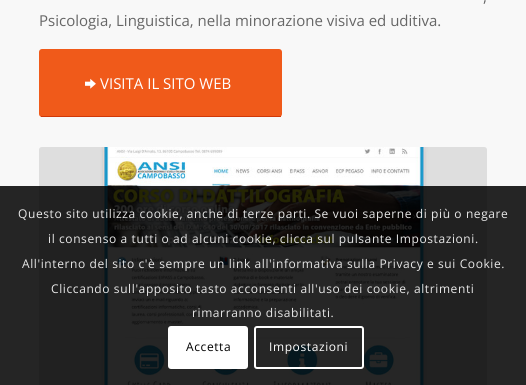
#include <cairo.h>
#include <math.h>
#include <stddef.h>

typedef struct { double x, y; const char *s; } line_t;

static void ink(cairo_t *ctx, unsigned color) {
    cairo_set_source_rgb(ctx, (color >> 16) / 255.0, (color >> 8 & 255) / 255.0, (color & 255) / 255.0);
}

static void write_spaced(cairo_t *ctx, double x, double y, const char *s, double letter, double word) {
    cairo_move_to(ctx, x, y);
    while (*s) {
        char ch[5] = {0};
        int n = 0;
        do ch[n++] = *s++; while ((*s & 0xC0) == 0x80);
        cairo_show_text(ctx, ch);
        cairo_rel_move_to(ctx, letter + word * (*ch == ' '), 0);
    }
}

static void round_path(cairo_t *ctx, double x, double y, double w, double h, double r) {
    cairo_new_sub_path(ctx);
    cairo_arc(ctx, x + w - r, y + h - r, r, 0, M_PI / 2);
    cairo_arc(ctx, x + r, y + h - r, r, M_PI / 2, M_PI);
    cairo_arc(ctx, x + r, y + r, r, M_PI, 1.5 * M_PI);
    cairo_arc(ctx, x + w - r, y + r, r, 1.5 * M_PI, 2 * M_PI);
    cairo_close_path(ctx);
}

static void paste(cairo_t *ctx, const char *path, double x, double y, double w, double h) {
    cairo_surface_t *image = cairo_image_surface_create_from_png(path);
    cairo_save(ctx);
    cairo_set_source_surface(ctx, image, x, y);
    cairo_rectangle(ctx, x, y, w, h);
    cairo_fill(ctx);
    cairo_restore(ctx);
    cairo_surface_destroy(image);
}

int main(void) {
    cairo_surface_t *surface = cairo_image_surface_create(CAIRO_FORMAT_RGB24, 526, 385);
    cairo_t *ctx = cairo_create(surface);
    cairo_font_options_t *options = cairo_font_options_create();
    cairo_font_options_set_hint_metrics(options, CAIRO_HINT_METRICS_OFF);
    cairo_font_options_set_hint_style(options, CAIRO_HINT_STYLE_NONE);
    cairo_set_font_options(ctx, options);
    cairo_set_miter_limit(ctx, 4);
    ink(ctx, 0xF8F8F8);
    cairo_paint(ctx);
    cairo_select_font_face(ctx, "Open Sans", CAIRO_FONT_SLANT_NORMAL, CAIRO_FONT_WEIGHT_NORMAL);
    cairo_set_font_size(ctx, 15);
    ink(ctx, 0x666666);
    write_spaced(ctx, 483, 2, ",", 0, 10);
    cairo_move_to(ctx, 39, 26);
    cairo_show_text(ctx, "Psicologia, Linguistica, nella minorazione visiva ed uditiva.");
    ink(ctx, 0xF05A1A);
    round_path(ctx, 39, 49, 243, 68, 3);
    cairo_fill(ctx);
    ink(ctx, 0xD03808);
    cairo_rectangle(ctx, 41, 116, 240, 1);
    cairo_fill(ctx);
    paste(ctx, "media/1.png", 85, 78, 11, 11);
    ink(ctx, 0xFFFFFF);
    cairo_move_to(ctx, 100, 89);
    cairo_show_text(ctx, "VISITA IL SITO WEB");
    paste(ctx, "media/2.png", 39, 147, 448, 238);
    cairo_set_source_rgba(ctx, 0, 0, 0, 0.85);
    cairo_rectangle(ctx, 0, 186, 526, 199);
    cairo_fill(ctx);
    cairo_set_font_size(ctx, 12);
    ink(ctx, 0xE8E8E8);
    {
        static const line_t items[] = {
            {18, 218, "Questo sito utilizza cookie, anche di terze parti. Se vuoi saperne di più o negare"},
            {48, 243, "il consenso a tutti o ad alcuni cookie, clicca sul pulsante Impostazioni."},
            {22, 268, "All'interno del sito c'è sempre un link all'informativa sulla Privacy e sui Cookie."},
            {51, 293, "Cliccando sull'apposito tasto acconsenti all'uso dei cookie, altrimenti"},
            {192, 317, "rimarranno disabilitati."},
        };
        for (size_t i = 0; i < sizeof items / sizeof *items; i++) {
            write_spaced(ctx, items[i].x, items[i].y, items[i].s, 0.6, 0);
        }
    }
    ink(ctx, 0xFFFFFF);
    round_path(ctx, 168, 326, 80, 43, 3);
    cairo_fill(ctx);
    ink(ctx, 0x000000);
    write_spaced(ctx, 186, 351, "Accetta", 0.6, 0);
    round_path(ctx, 255, 327, 108, 41, 2);
    ink(ctx, 0xFFFFFF);
    cairo_stroke(ctx);
    write_spaced(ctx, 269, 351, "Impostazioni", 0.6, 0);
    cairo_surface_write_to_png(surface, "image.png");
    cairo_font_options_destroy(options);
    cairo_destroy(ctx);
    cairo_surface_destroy(surface);
    return 0;
}
